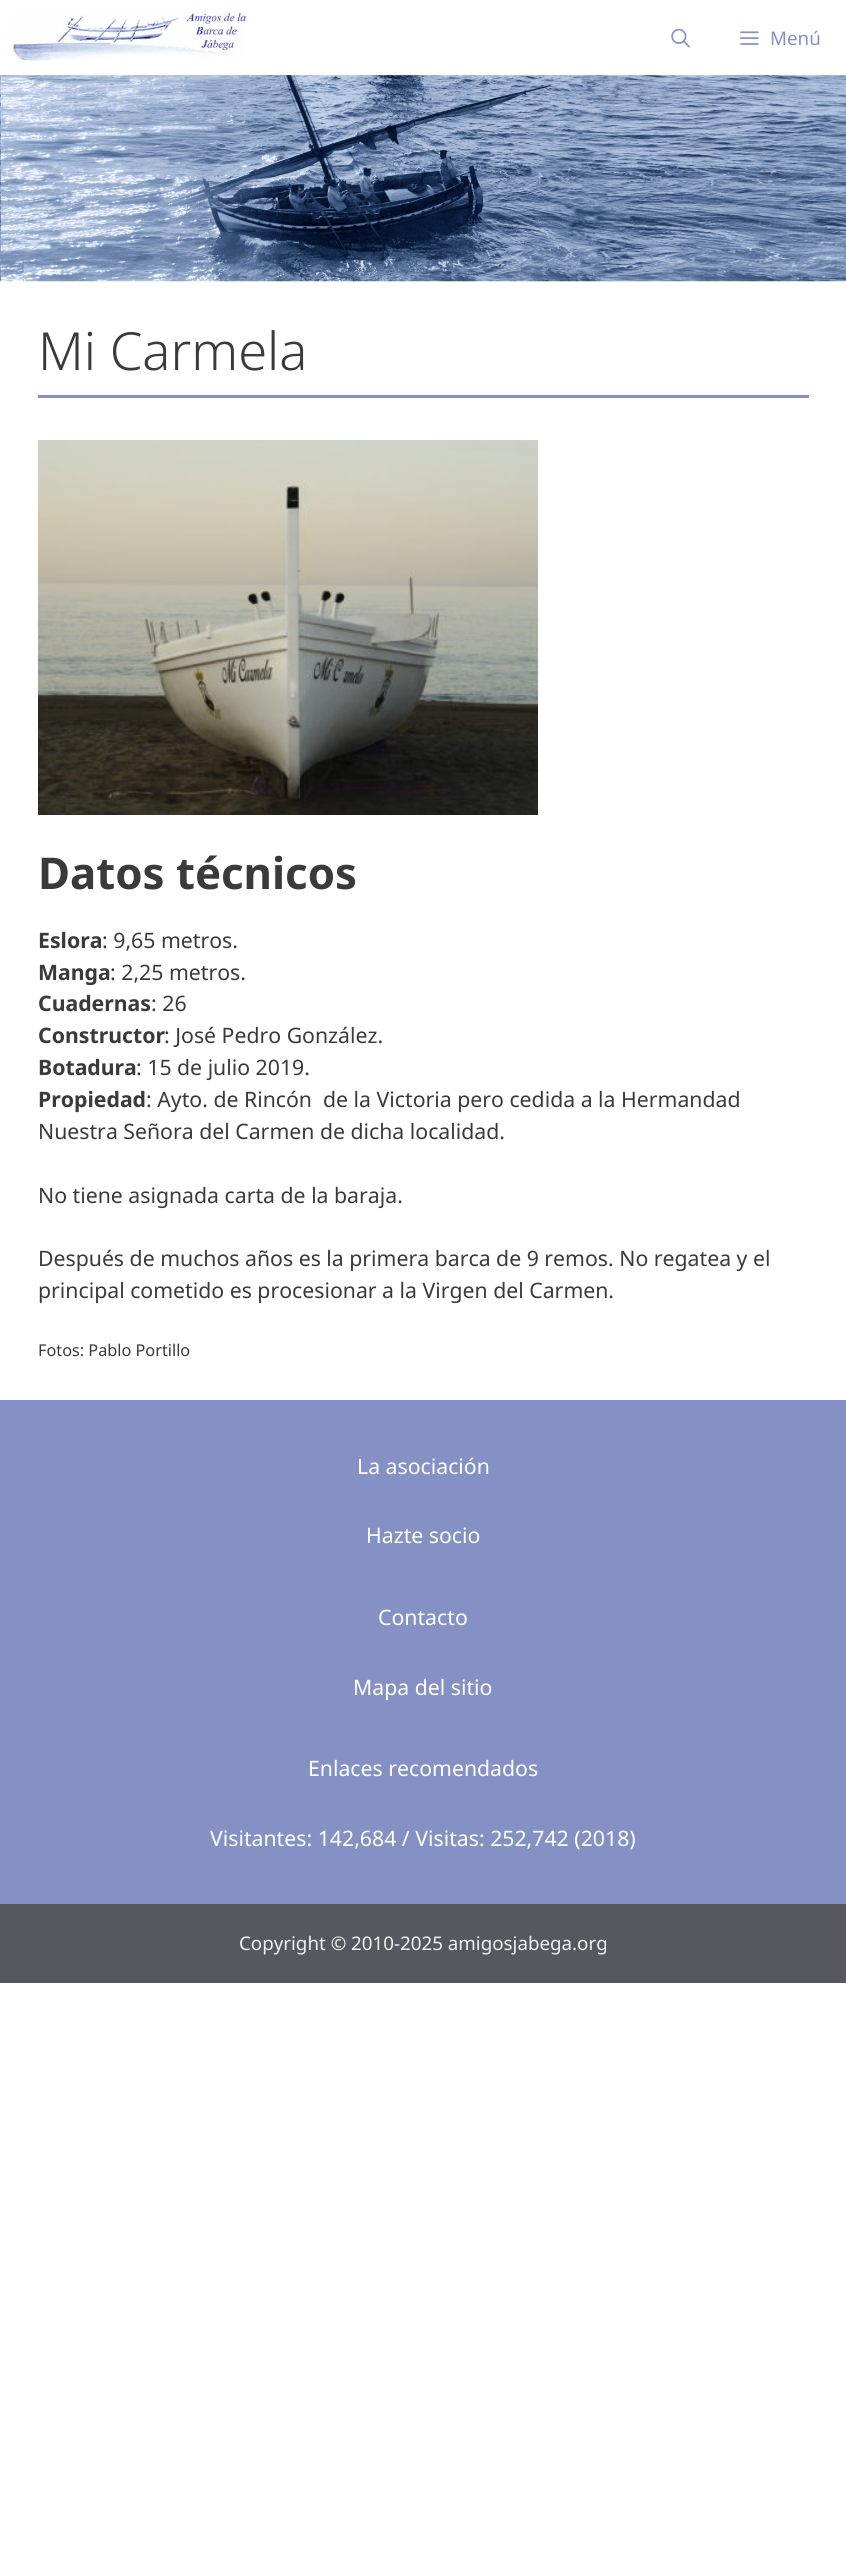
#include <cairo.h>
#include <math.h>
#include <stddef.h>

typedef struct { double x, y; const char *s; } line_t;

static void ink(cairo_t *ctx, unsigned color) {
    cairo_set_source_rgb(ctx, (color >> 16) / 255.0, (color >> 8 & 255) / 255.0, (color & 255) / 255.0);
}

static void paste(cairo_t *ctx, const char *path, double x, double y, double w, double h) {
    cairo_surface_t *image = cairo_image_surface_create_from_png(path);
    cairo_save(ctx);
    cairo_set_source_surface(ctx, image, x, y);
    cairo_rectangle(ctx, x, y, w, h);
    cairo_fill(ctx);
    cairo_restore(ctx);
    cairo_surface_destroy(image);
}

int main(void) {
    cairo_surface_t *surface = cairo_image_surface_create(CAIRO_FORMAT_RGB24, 846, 2556);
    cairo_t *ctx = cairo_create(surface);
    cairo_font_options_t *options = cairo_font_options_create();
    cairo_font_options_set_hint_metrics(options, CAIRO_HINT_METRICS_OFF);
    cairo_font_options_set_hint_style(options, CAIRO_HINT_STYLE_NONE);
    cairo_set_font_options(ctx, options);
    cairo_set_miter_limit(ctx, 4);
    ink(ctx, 0xFFFFFF);
    cairo_paint(ctx);
    paste(ctx, "media/1.png", 12, 12, 235, 50);
    paste(ctx, "media/2.png", 671, 29, 19, 19);
    paste(ctx, "media/3.png", 740, 31, 19, 14);
    cairo_select_font_face(ctx, "Noto Sans", CAIRO_FONT_SLANT_NORMAL, CAIRO_FONT_WEIGHT_NORMAL);
    cairo_set_font_size(ctx, 18.75);
    ink(ctx, 0x8591C5);
    cairo_move_to(ctx, 770, 45);
    cairo_show_text(ctx, "Menú");
    paste(ctx, "media/4.png", 0, 75, 846, 207);
    cairo_rectangle(ctx, 38, 395, 771, 3);
    cairo_fill(ctx);
    cairo_select_font_face(ctx, "Noto Sans Light", CAIRO_FONT_SLANT_NORMAL, CAIRO_FONT_WEIGHT_NORMAL);
    cairo_set_font_size(ctx, 52.5);
    ink(ctx, 0x3A3A3A);
    cairo_move_to(ctx, 38, 370);
    cairo_show_text(ctx, "Mi Carmela");
    paste(ctx, "media/5.png", 38, 440, 500, 375);
    cairo_select_font_face(ctx, "Noto Sans", CAIRO_FONT_SLANT_NORMAL, CAIRO_FONT_WEIGHT_BOLD);
    cairo_set_font_size(ctx, 43.75);
    cairo_move_to(ctx, 38, 889);
    cairo_show_text(ctx, "Datos técnicos");
    cairo_set_font_size(ctx, 21.25);
    cairo_move_to(ctx, 38, 948);
    cairo_show_text(ctx, "Eslora");
    cairo_select_font_face(ctx, "Noto Sans", CAIRO_FONT_SLANT_NORMAL, CAIRO_FONT_WEIGHT_NORMAL);
    cairo_move_to(ctx, 102, 948);
    cairo_show_text(ctx, ": 9,65 metros.");
    cairo_select_font_face(ctx, "Noto Sans", CAIRO_FONT_SLANT_NORMAL, CAIRO_FONT_WEIGHT_BOLD);
    cairo_move_to(ctx, 38, 980);
    cairo_show_text(ctx, "Manga");
    cairo_select_font_face(ctx, "Noto Sans", CAIRO_FONT_SLANT_NORMAL, CAIRO_FONT_WEIGHT_NORMAL);
    cairo_move_to(ctx, 110, 980);
    cairo_show_text(ctx, ": 2,25 metros.");
    cairo_select_font_face(ctx, "Noto Sans", CAIRO_FONT_SLANT_NORMAL, CAIRO_FONT_WEIGHT_BOLD);
    cairo_move_to(ctx, 38, 1011);
    cairo_show_text(ctx, "Cuadernas");
    cairo_select_font_face(ctx, "Noto Sans", CAIRO_FONT_SLANT_NORMAL, CAIRO_FONT_WEIGHT_NORMAL);
    cairo_move_to(ctx, 151, 1011);
    cairo_show_text(ctx, ": 26");
    cairo_select_font_face(ctx, "Noto Sans", CAIRO_FONT_SLANT_NORMAL, CAIRO_FONT_WEIGHT_BOLD);
    cairo_move_to(ctx, 38, 1043);
    cairo_show_text(ctx, "Constructor");
    cairo_select_font_face(ctx, "Noto Sans", CAIRO_FONT_SLANT_NORMAL, CAIRO_FONT_WEIGHT_NORMAL);
    cairo_move_to(ctx, 164, 1043);
    cairo_show_text(ctx, ": José Pedro González.");
    cairo_select_font_face(ctx, "Noto Sans", CAIRO_FONT_SLANT_NORMAL, CAIRO_FONT_WEIGHT_BOLD);
    cairo_move_to(ctx, 38, 1075);
    cairo_show_text(ctx, "Botadura");
    cairo_select_font_face(ctx, "Noto Sans", CAIRO_FONT_SLANT_NORMAL, CAIRO_FONT_WEIGHT_NORMAL);
    cairo_move_to(ctx, 136, 1075);
    cairo_show_text(ctx, ": 15 de julio 2019.");
    cairo_select_font_face(ctx, "Noto Sans", CAIRO_FONT_SLANT_NORMAL, CAIRO_FONT_WEIGHT_BOLD);
    cairo_move_to(ctx, 38, 1107);
    cairo_show_text(ctx, "Propiedad");
    cairo_select_font_face(ctx, "Noto Sans", CAIRO_FONT_SLANT_NORMAL, CAIRO_FONT_WEIGHT_NORMAL);
    {
        static const line_t items[] = {
            {146, 1107, ": Ayto. de Rincón  de la Victoria pero cedida a la Hermandad"},
            {38, 1139, "Nuestra Señora del Carmen de dicha localidad."},
            {38, 1203, "No tiene asignada carta de la baraja."},
            {38, 1266, "Después de muchos años es la primera barca de 9 remos. No regatea y el"},
            {38, 1298, "principal cometido es procesionar a la Virgen del Carmen."},
        };
        for (size_t i = 0; i < sizeof items / sizeof *items; i++) {
            cairo_move_to(ctx, items[i].x, items[i].y);
            cairo_show_text(ctx, items[i].s);
        }
    }
    cairo_set_font_size(ctx, 16.25);
    cairo_move_to(ctx, 38, 1356);
    cairo_show_text(ctx, "Fotos: Pablo Portillo");
    ink(ctx, 0x8591C5);
    cairo_rectangle(ctx, 0, 1400, 846, 504);
    cairo_fill(ctx);
    cairo_set_font_size(ctx, 21.25);
    ink(ctx, 0xFFFFFF);
    {
        static const line_t items[] = {
            {357, 1474, "La asociación"},
            {366, 1543, "Hazte socio"},
            {378, 1625, "Contacto"},
            {353, 1695, "Mapa del sitio"},
            {308, 1776, "Enlaces recomendados"},
            {210, 1846, "Visitantes: 142,684 / Visitas: 252,742 (2018)"},
        };
        for (size_t i = 0; i < sizeof items / sizeof *items; i++) {
            cairo_move_to(ctx, items[i].x, items[i].y);
            cairo_show_text(ctx, items[i].s);
        }
    }
    ink(ctx, 0x575760);
    cairo_rectangle(ctx, 0, 1904, 846, 79);
    cairo_fill(ctx);
    cairo_set_font_size(ctx, 18.75);
    ink(ctx, 0xF0F0F0);
    cairo_move_to(ctx, 239, 1950);
    cairo_show_text(ctx, "Copyright © 2010-2025 amigosjabega.org");
    cairo_surface_write_to_png(surface, "image.png");
    cairo_font_options_destroy(options);
    cairo_destroy(ctx);
    cairo_surface_destroy(surface);
    return 0;
}
